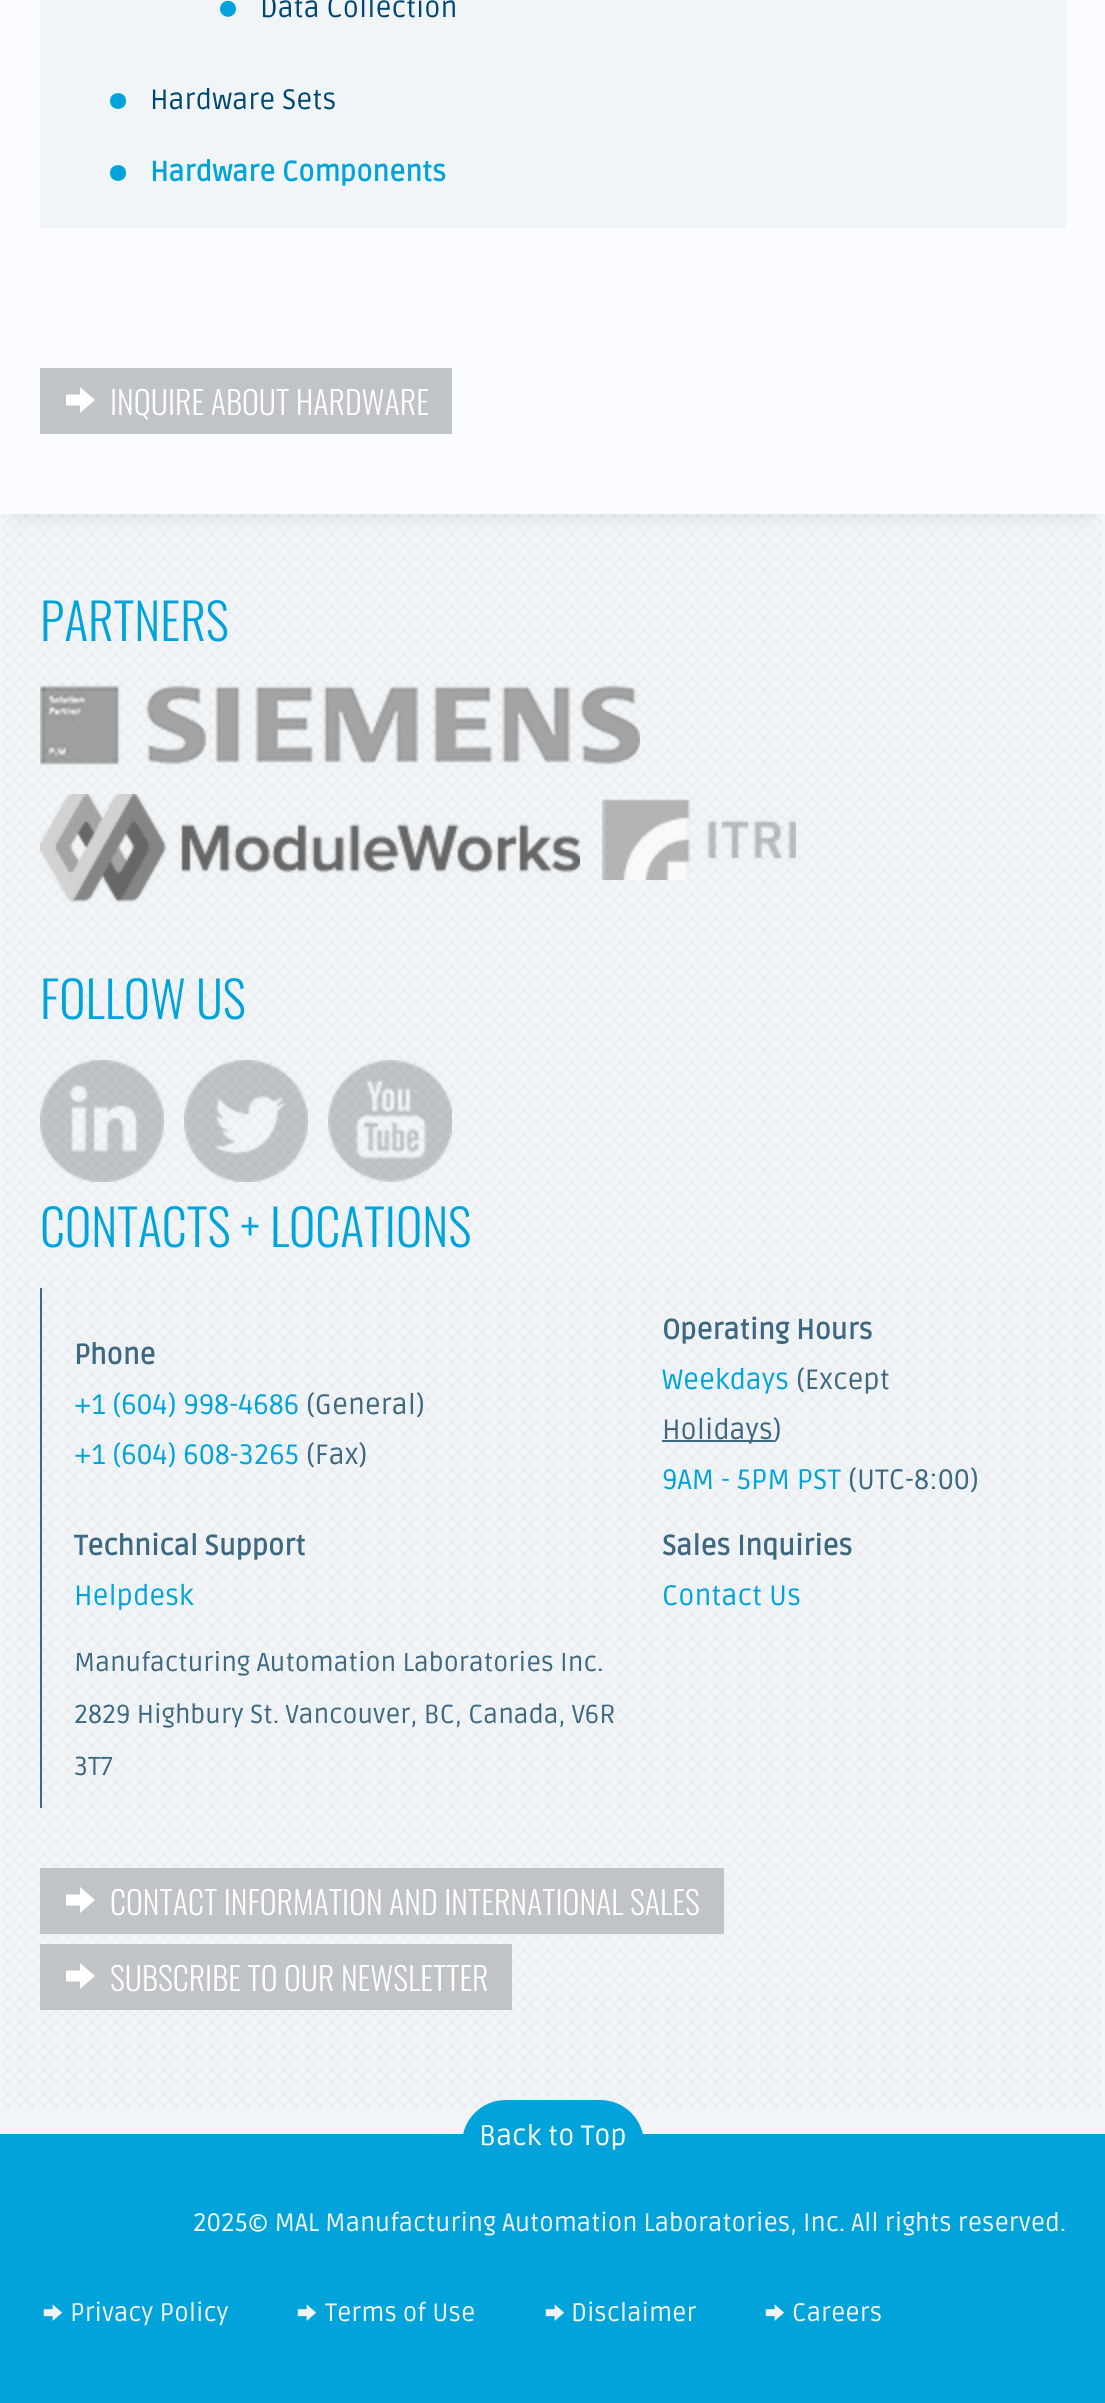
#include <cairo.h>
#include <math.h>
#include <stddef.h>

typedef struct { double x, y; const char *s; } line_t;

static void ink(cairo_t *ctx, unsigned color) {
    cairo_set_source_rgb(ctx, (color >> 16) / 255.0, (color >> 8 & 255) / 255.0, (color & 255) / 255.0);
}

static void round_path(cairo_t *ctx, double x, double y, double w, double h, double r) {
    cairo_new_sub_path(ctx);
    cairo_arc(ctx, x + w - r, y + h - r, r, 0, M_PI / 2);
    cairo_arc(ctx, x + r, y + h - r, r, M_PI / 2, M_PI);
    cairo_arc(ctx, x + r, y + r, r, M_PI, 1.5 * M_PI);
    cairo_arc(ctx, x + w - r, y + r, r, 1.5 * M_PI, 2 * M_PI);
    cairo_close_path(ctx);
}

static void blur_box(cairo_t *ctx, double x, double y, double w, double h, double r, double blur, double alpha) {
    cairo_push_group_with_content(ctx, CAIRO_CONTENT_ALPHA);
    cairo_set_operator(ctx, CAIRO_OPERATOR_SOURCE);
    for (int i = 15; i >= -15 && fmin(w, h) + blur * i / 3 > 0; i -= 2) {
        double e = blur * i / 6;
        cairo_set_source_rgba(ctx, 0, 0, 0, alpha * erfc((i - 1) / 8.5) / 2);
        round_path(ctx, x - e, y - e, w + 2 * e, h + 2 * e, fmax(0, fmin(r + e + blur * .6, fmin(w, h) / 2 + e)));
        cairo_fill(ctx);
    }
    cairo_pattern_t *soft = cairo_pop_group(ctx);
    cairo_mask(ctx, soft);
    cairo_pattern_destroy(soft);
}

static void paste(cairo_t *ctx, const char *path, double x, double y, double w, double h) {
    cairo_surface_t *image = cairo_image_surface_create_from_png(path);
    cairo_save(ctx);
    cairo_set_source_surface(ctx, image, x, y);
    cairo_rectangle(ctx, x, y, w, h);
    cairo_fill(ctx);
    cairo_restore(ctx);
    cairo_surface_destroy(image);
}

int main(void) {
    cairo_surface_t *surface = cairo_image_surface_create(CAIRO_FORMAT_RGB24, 1105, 2403);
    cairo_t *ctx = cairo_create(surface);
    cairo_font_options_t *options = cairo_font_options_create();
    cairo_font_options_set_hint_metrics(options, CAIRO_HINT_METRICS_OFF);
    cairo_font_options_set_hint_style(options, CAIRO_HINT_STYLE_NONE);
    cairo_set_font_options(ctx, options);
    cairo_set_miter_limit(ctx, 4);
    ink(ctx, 0xF1F5F8);
    cairo_paint(ctx);
    paste(ctx, "media/2.png", 1, 515, 1101, 1593);
    ink(ctx, 0x000000);
    blur_box(ctx, 16, -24, 1074, 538, 0, 8, 0.12);
    ink(ctx, 0xFAFCFF);
    cairo_rectangle(ctx, 0, 0, 1105, 514);
    cairo_fill(ctx);
    ink(ctx, 0xF1F5F8);
    cairo_rectangle(ctx, 40, 0, 1026, 228);
    cairo_fill(ctx);
    paste(ctx, "media/1.png", 220, 0, 16, 17);
    cairo_select_font_face(ctx, "Ruda", CAIRO_FONT_SLANT_NORMAL, CAIRO_FONT_WEIGHT_NORMAL);
    cairo_set_font_size(ctx, 28);
    ink(ctx, 0x004871);
    cairo_move_to(ctx, 260, 17);
    cairo_show_text(ctx, "Data Collection");
    ink(ctx, 0x00A3DA);
    cairo_new_path(ctx);
    cairo_move_to(ctx, 126, 101);
    cairo_curve_to(ctx, 126, 90.5, 110, 90.5, 110, 101);
    cairo_curve_to(ctx, 110, 111.5, 126, 111.5, 126, 101);
    cairo_close_path(ctx);
    cairo_fill(ctx);
    ink(ctx, 0x004871);
    cairo_move_to(ctx, 150, 109);
    cairo_show_text(ctx, "Hardware Sets");
    ink(ctx, 0x00A3DA);
    cairo_new_path(ctx);
    cairo_move_to(ctx, 126, 173);
    cairo_curve_to(ctx, 126, 162.5, 110, 162.5, 110, 173);
    cairo_curve_to(ctx, 110, 183.5, 126, 183.5, 126, 173);
    cairo_close_path(ctx);
    cairo_fill(ctx);
    cairo_select_font_face(ctx, "Ruda", CAIRO_FONT_SLANT_NORMAL, CAIRO_FONT_WEIGHT_BOLD);
    cairo_move_to(ctx, 150, 181);
    cairo_show_text(ctx, "Hardware Components");
    ink(ctx, 0xC0C4C6);
    cairo_rectangle(ctx, 40, 368, 412, 66);
    cairo_fill(ctx);
    ink(ctx, 0xFFFFFF);
    cairo_new_path(ctx);
    cairo_move_to(ctx, 80, 387);
    cairo_line_to(ctx, 95, 400);
    cairo_line_to(ctx, 80, 413);
    cairo_line_to(ctx, 80, 405.5);
    cairo_line_to(ctx, 66, 405.5);
    cairo_line_to(ctx, 66, 394.5);
    cairo_line_to(ctx, 80, 394.5);
    cairo_close_path(ctx);
    cairo_fill(ctx);
    cairo_select_font_face(ctx, "Oswald Light", CAIRO_FONT_SLANT_NORMAL, CAIRO_FONT_WEIGHT_NORMAL);
    cairo_set_font_size(ctx, 32);
    cairo_move_to(ctx, 110, 415);
    cairo_show_text(ctx, "INQUIRE ABOUT HARDWARE");
    cairo_set_font_size(ctx, 50);
    ink(ctx, 0x00A3DA);
    cairo_move_to(ctx, 40, 641);
    cairo_show_text(ctx, "PARTNERS");
    paste(ctx, "media/3.png", 40, 685, 600, 80);
    paste(ctx, "media/4.png", 40, 794, 540, 108);
    paste(ctx, "media/5.png", 602, 799, 194, 81);
    cairo_move_to(ctx, 40, 1019);
    cairo_show_text(ctx, "FOLLOW US");
    paste(ctx, "media/6.png", 40, 1060, 124, 122);
    paste(ctx, "media/7.png", 184, 1060, 124, 122);
    paste(ctx, "media/8.png", 328, 1060, 124, 122);
    cairo_move_to(ctx, 40, 1247);
    cairo_show_text(ctx, "CONTACTS + LOCATIONS");
    ink(ctx, 0x3E6880);
    cairo_rectangle(ctx, 40, 1288, 2, 520);
    cairo_fill(ctx);
    cairo_select_font_face(ctx, "Ruda", CAIRO_FONT_SLANT_NORMAL, CAIRO_FONT_WEIGHT_BOLD);
    cairo_set_font_size(ctx, 28);
    cairo_move_to(ctx, 74, 1364);
    cairo_show_text(ctx, "Phone");
    cairo_select_font_face(ctx, "Ruda", CAIRO_FONT_SLANT_NORMAL, CAIRO_FONT_WEIGHT_NORMAL);
    ink(ctx, 0x00A3DA);
    cairo_move_to(ctx, 74, 1414);
    cairo_show_text(ctx, "+1 (604) 998-4686");
    ink(ctx, 0x3E6880);
    cairo_move_to(ctx, 306, 1414);
    cairo_show_text(ctx, "(General)");
    ink(ctx, 0x00A3DA);
    cairo_move_to(ctx, 74, 1464);
    cairo_show_text(ctx, "+1 (604) 608-3265");
    ink(ctx, 0x3E6880);
    cairo_move_to(ctx, 306, 1464);
    cairo_show_text(ctx, "(Fax)");
    cairo_select_font_face(ctx, "Ruda", CAIRO_FONT_SLANT_NORMAL, CAIRO_FONT_WEIGHT_BOLD);
    cairo_move_to(ctx, 662, 1339);
    cairo_show_text(ctx, "Operating Hours");
    cairo_select_font_face(ctx, "Ruda", CAIRO_FONT_SLANT_NORMAL, CAIRO_FONT_WEIGHT_NORMAL);
    ink(ctx, 0x00A3DA);
    cairo_move_to(ctx, 662, 1389);
    cairo_show_text(ctx, "Weekdays");
    ink(ctx, 0x3E6880);
    cairo_move_to(ctx, 796, 1389);
    cairo_show_text(ctx, "(Except");
    cairo_rectangle(ctx, 662, 1440, 112, 2);
    cairo_fill(ctx);
    cairo_move_to(ctx, 662, 1439);
    cairo_show_text(ctx, "Holidays)");
    ink(ctx, 0x00A3DA);
    cairo_move_to(ctx, 662, 1489);
    cairo_show_text(ctx, "9AM - 5PM PST");
    ink(ctx, 0x3E6880);
    cairo_move_to(ctx, 848, 1489);
    cairo_show_text(ctx, "(UTC-8:00)");
    cairo_select_font_face(ctx, "Ruda", CAIRO_FONT_SLANT_NORMAL, CAIRO_FONT_WEIGHT_BOLD);
    cairo_move_to(ctx, 74, 1555);
    cairo_show_text(ctx, "Technical Support");
    cairo_select_font_face(ctx, "Ruda", CAIRO_FONT_SLANT_NORMAL, CAIRO_FONT_WEIGHT_NORMAL);
    ink(ctx, 0x00A3DA);
    cairo_move_to(ctx, 74, 1605);
    cairo_show_text(ctx, "Helpdesk");
    cairo_select_font_face(ctx, "Ruda", CAIRO_FONT_SLANT_NORMAL, CAIRO_FONT_WEIGHT_BOLD);
    ink(ctx, 0x3E6880);
    cairo_move_to(ctx, 662, 1555);
    cairo_show_text(ctx, "Sales Inquiries");
    cairo_select_font_face(ctx, "Ruda", CAIRO_FONT_SLANT_NORMAL, CAIRO_FONT_WEIGHT_NORMAL);
    ink(ctx, 0x00A3DA);
    cairo_move_to(ctx, 662, 1605);
    cairo_show_text(ctx, "Contact Us");
    cairo_set_font_size(ctx, 26);
    ink(ctx, 0x3E6880);
    {
        static const line_t items[] = {
            {74, 1671, "Manufacturing Automation Laboratories Inc."},
            {74, 1723, "2829 Highbury St. Vancouver, BC, Canada, V6R"},
            {74, 1775, "3T7"},
        };
        for (size_t i = 0; i < sizeof items / sizeof *items; i++) {
            cairo_move_to(ctx, items[i].x, items[i].y);
            cairo_show_text(ctx, items[i].s);
        }
    }
    ink(ctx, 0xC0C4C6);
    cairo_rectangle(ctx, 40, 1868, 684, 66);
    cairo_fill(ctx);
    ink(ctx, 0xFFFFFF);
    cairo_new_path(ctx);
    cairo_move_to(ctx, 80, 1887);
    cairo_line_to(ctx, 95, 1900);
    cairo_line_to(ctx, 80, 1913);
    cairo_line_to(ctx, 80, 1905.5);
    cairo_line_to(ctx, 66, 1905.5);
    cairo_line_to(ctx, 66, 1894.5);
    cairo_line_to(ctx, 80, 1894.5);
    cairo_close_path(ctx);
    cairo_fill(ctx);
    cairo_select_font_face(ctx, "Oswald Light", CAIRO_FONT_SLANT_NORMAL, CAIRO_FONT_WEIGHT_NORMAL);
    cairo_set_font_size(ctx, 32);
    cairo_move_to(ctx, 110, 1915);
    cairo_show_text(ctx, "CONTACT INFORMATION AND INTERNATIONAL SALES");
    ink(ctx, 0xC0C4C6);
    cairo_rectangle(ctx, 40, 1944, 472, 66);
    cairo_fill(ctx);
    ink(ctx, 0xFFFFFF);
    cairo_new_path(ctx);
    cairo_move_to(ctx, 80, 1963);
    cairo_line_to(ctx, 95, 1976);
    cairo_line_to(ctx, 80, 1989);
    cairo_line_to(ctx, 80, 1981.5);
    cairo_line_to(ctx, 66, 1981.5);
    cairo_line_to(ctx, 66, 1970.5);
    cairo_line_to(ctx, 80, 1970.5);
    cairo_close_path(ctx);
    cairo_fill(ctx);
    cairo_move_to(ctx, 110, 1991);
    cairo_show_text(ctx, "SUBSCRIBE TO OUR NEWSLETTER");
    ink(ctx, 0x00A3DA);
    cairo_rectangle(ctx, 0, 2134, 1105, 269);
    cairo_fill(ctx);
    cairo_new_path(ctx);
    cairo_move_to(ctx, 506, 2100);
    cairo_line_to(ctx, 600, 2100);
    cairo_curve_to(ctx, 624.5, 2100, 644, 2119.5, 644, 2144);
    cairo_line_to(ctx, 644, 2160);
    cairo_curve_to(ctx, 644, 2165.5, 639.5, 2170, 634, 2170);
    cairo_line_to(ctx, 472, 2170);
    cairo_curve_to(ctx, 466.5, 2170, 462, 2165.5, 462, 2160);
    cairo_line_to(ctx, 462, 2144);
    cairo_curve_to(ctx, 462, 2119.5, 481.5, 2100, 506, 2100);
    cairo_close_path(ctx);
    cairo_fill(ctx);
    cairo_select_font_face(ctx, "Ruda", CAIRO_FONT_SLANT_NORMAL, CAIRO_FONT_WEIGHT_NORMAL);
    cairo_set_font_size(ctx, 28);
    ink(ctx, 0xFFFFFF);
    cairo_move_to(ctx, 479, 2145);
    cairo_show_text(ctx, "Back to Top");
    cairo_set_font_size(ctx, 25.2);
    ink(ctx, 0xF1F5F8);
    cairo_move_to(ctx, 193, 2231);
    cairo_show_text(ctx, "2025© MAL Manufacturing Automation Laboratories, Inc. All rights reserved.");
    paste(ctx, "media/9.png", 43, 2304, 20, 17);
    cairo_move_to(ctx, 70, 2321);
    cairo_show_text(ctx, "Privacy Policy");
    paste(ctx, "media/9.png", 297, 2304, 20, 17);
    cairo_move_to(ctx, 325, 2321);
    cairo_show_text(ctx, "Terms of Use");
    paste(ctx, "media/9.png", 545, 2304, 20, 17);
    cairo_move_to(ctx, 571, 2321);
    cairo_show_text(ctx, "Disclaimer");
    paste(ctx, "media/9.png", 765, 2304, 20, 17);
    cairo_move_to(ctx, 792, 2321);
    cairo_show_text(ctx, "Careers");
    cairo_surface_write_to_png(surface, "image.png");
    cairo_font_options_destroy(options);
    cairo_destroy(ctx);
    cairo_surface_destroy(surface);
    return 0;
}
